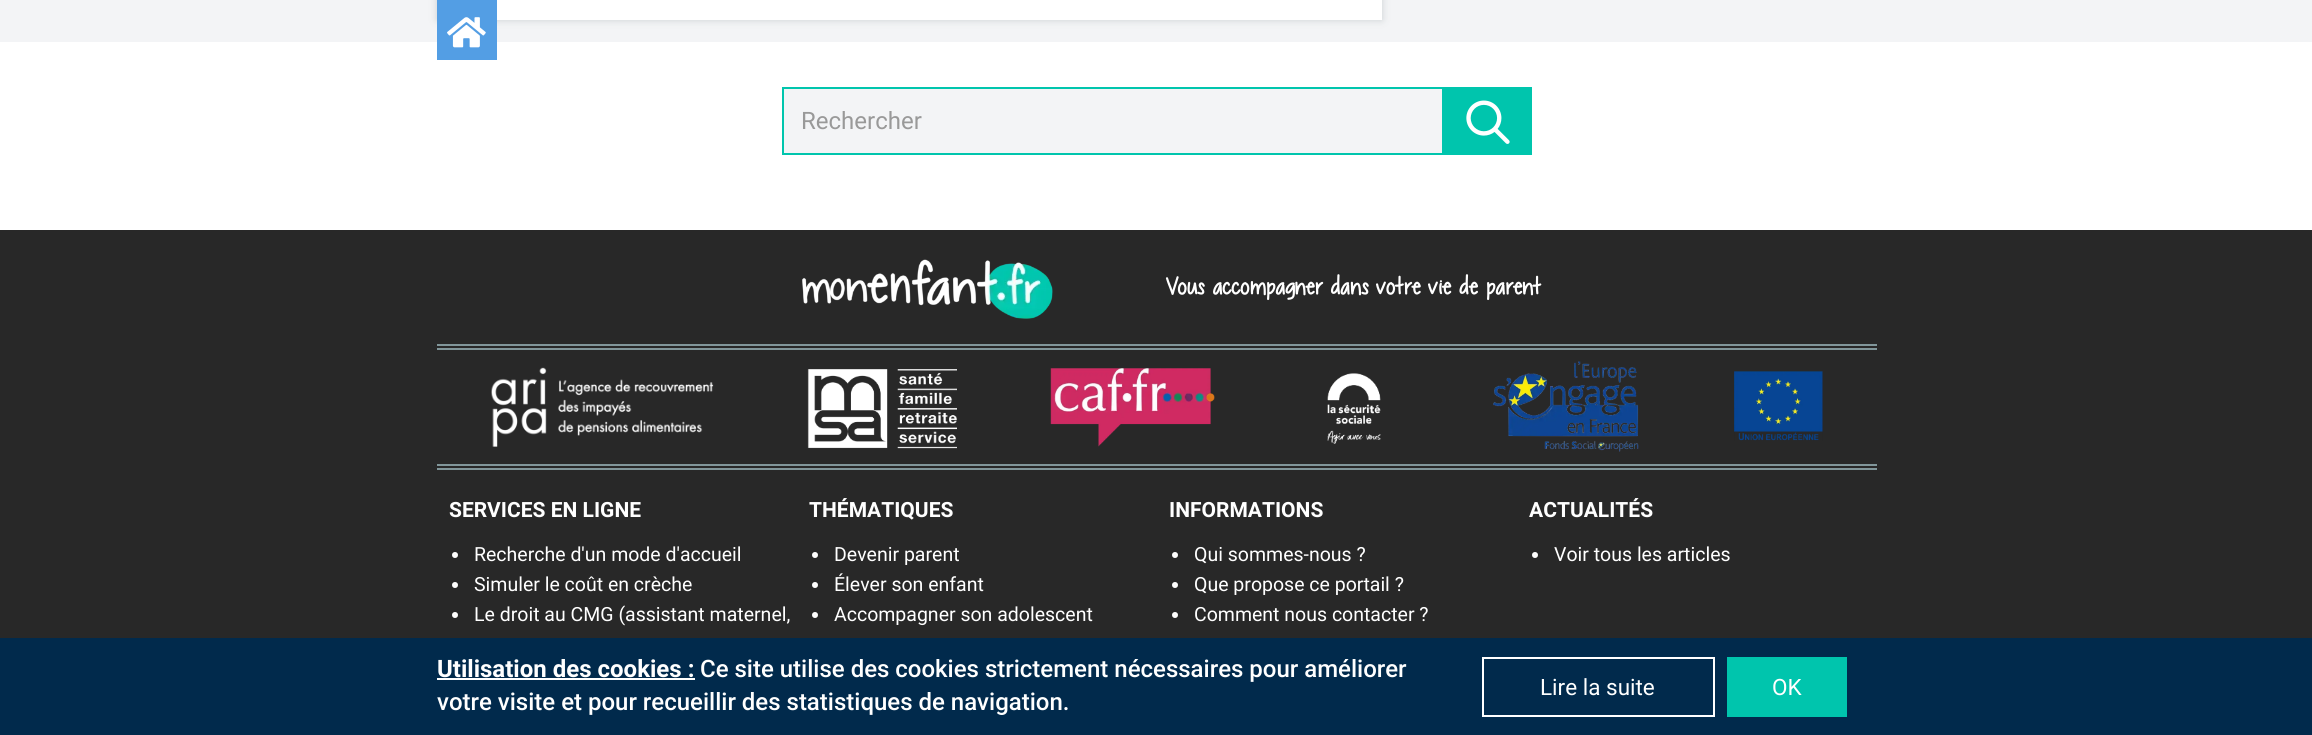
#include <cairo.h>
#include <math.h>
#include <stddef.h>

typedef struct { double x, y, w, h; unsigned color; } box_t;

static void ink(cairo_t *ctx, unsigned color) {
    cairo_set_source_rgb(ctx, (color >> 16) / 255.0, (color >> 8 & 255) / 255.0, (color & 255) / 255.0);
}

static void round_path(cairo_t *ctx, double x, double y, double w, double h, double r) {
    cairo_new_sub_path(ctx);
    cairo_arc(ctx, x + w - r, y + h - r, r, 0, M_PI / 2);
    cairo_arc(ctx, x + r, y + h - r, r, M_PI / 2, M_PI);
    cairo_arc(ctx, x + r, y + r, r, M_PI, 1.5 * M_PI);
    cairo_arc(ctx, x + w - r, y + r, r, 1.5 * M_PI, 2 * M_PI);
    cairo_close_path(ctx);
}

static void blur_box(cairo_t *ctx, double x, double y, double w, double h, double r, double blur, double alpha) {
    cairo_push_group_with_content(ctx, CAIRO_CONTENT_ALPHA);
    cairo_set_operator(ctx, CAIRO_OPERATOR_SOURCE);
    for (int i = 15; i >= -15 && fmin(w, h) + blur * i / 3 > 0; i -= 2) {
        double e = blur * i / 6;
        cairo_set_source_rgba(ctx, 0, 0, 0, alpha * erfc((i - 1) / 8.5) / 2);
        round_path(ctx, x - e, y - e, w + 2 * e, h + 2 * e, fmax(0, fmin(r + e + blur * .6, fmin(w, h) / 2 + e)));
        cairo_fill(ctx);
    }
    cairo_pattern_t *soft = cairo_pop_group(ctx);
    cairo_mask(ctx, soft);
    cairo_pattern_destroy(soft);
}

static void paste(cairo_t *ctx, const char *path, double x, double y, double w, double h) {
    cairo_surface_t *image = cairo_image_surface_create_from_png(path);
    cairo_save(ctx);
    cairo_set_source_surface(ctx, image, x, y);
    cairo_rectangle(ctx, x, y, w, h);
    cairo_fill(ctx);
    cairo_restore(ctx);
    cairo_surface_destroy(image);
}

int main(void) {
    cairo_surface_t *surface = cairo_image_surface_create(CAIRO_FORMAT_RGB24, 2312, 735);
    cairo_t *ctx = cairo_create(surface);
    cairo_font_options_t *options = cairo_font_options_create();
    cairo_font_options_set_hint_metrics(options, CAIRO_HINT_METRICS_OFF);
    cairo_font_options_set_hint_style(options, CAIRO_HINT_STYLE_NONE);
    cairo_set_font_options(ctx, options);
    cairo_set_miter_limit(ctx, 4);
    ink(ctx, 0xF3F4F6);
    cairo_paint(ctx);
    ink(ctx, 0xFFFFFF);
    cairo_rectangle(ctx, 0, 42, 2312, 188);
    cairo_fill(ctx);
    ink(ctx, 0xCDD1D4);
    blur_box(ctx, 437, -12, 945, 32, 0, 4, 1);
    ink(ctx, 0x539EE4);
    cairo_rectangle(ctx, 437, 0, 60, 60);
    cairo_fill(ctx);
    paste(ctx, "media/1.png", 447, 17, 39, 31);
    {
        static const box_t items[] = {
            {784, 89, 658, 64, 0xF3F4F6},
            {782, 87, 660, 2, 0x00C5AD},
            {782, 153, 660, 2, 0x00C5AD},
            {782, 87, 2, 68, 0x00C5AD},
        };
        for (size_t i = 0; i < sizeof items / sizeof *items; i++) {
            ink(ctx, items[i].color);
            cairo_rectangle(ctx, items[i].x, items[i].y, items[i].w, items[i].h);
            cairo_fill(ctx);
        }
    }
    cairo_select_font_face(ctx, "Roboto", CAIRO_FONT_SLANT_NORMAL, CAIRO_FONT_WEIGHT_NORMAL);
    cairo_set_font_size(ctx, 24);
    ink(ctx, 0x999999);
    cairo_move_to(ctx, 801, 129);
    cairo_show_text(ctx, "Rechercher");
    ink(ctx, 0x00C5AD);
    cairo_rectangle(ctx, 1442, 87, 90, 68);
    cairo_fill(ctx);
    paste(ctx, "media/2.png", 1466, 100, 44, 44);
    ink(ctx, 0x282828);
    cairo_rectangle(ctx, 0, 230, 2312, 408);
    cairo_fill(ctx);
    paste(ctx, "media/3.png", 802, 259, 251, 60);
    cairo_select_font_face(ctx, "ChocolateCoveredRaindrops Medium", CAIRO_FONT_SLANT_NORMAL, CAIRO_FONT_WEIGHT_NORMAL);
    cairo_set_font_size(ctx, 33);
    ink(ctx, 0xFFFFFF);
    cairo_move_to(ctx, 1161, 293);
    cairo_show_text(ctx, "Vous accompagner dans votre vie de parent");
    {
        static const box_t items[] = {
            {437, 344, 1440, 2, 0x81969A},
            {437, 348, 1440, 2, 0x81969A},
            {437, 464, 1440, 2, 0x81969A},
            {437, 468, 1440, 2, 0x81969A},
        };
        for (size_t i = 0; i < sizeof items / sizeof *items; i++) {
            ink(ctx, items[i].color);
            cairo_rectangle(ctx, items[i].x, items[i].y, items[i].w, items[i].h);
            cairo_fill(ctx);
        }
    }
    paste(ctx, "media/4.png", 491, 367, 223, 80);
    paste(ctx, "media/5.png", 807, 369, 150, 80);
    paste(ctx, "media/6.png", 1050, 368, 165, 79);
    paste(ctx, "media/7.png", 1327, 373, 54, 71);
    paste(ctx, "media/8.png", 1493, 361, 146, 91);
    paste(ctx, "media/9.png", 1734, 371, 89, 70);
    cairo_select_font_face(ctx, "Roboto", CAIRO_FONT_SLANT_NORMAL, CAIRO_FONT_WEIGHT_BOLD);
    cairo_set_font_size(ctx, 21);
    ink(ctx, 0xFFFFFF);
    cairo_move_to(ctx, 449, 517);
    cairo_show_text(ctx, "SERVICES EN LIGNE");
    cairo_new_path(ctx);
    cairo_arc(ctx, 455, 555, 3, 0, 2 * M_PI);
    cairo_fill(ctx);
    cairo_select_font_face(ctx, "Roboto", CAIRO_FONT_SLANT_NORMAL, CAIRO_FONT_WEIGHT_NORMAL);
    cairo_set_font_size(ctx, 19.5);
    cairo_move_to(ctx, 474, 561);
    cairo_show_text(ctx, "Recherche d'un mode d'accueil");
    cairo_new_path(ctx);
    cairo_arc(ctx, 455, 585, 3, 0, 2 * M_PI);
    cairo_fill(ctx);
    cairo_move_to(ctx, 474, 591);
    cairo_show_text(ctx, "Simuler le coût en crèche");
    cairo_new_path(ctx);
    cairo_arc(ctx, 455, 615, 3, 0, 2 * M_PI);
    cairo_fill(ctx);
    cairo_move_to(ctx, 474, 621);
    cairo_show_text(ctx, "Le droit au CMG (assistant maternel,");
    cairo_select_font_face(ctx, "Roboto", CAIRO_FONT_SLANT_NORMAL, CAIRO_FONT_WEIGHT_BOLD);
    cairo_set_font_size(ctx, 21);
    cairo_move_to(ctx, 809, 517);
    cairo_show_text(ctx, "THÉMATIQUES");
    cairo_new_path(ctx);
    cairo_arc(ctx, 815, 555, 3, 0, 2 * M_PI);
    cairo_fill(ctx);
    cairo_select_font_face(ctx, "Roboto", CAIRO_FONT_SLANT_NORMAL, CAIRO_FONT_WEIGHT_NORMAL);
    cairo_set_font_size(ctx, 19.5);
    cairo_move_to(ctx, 834, 561);
    cairo_show_text(ctx, "Devenir parent");
    cairo_new_path(ctx);
    cairo_arc(ctx, 815, 585, 3, 0, 2 * M_PI);
    cairo_fill(ctx);
    cairo_move_to(ctx, 834, 591);
    cairo_show_text(ctx, "Élever son enfant");
    cairo_new_path(ctx);
    cairo_arc(ctx, 815, 615, 3, 0, 2 * M_PI);
    cairo_fill(ctx);
    cairo_move_to(ctx, 834, 621);
    cairo_show_text(ctx, "Accompagner son adolescent");
    cairo_select_font_face(ctx, "Roboto", CAIRO_FONT_SLANT_NORMAL, CAIRO_FONT_WEIGHT_BOLD);
    cairo_set_font_size(ctx, 21);
    cairo_move_to(ctx, 1169, 517);
    cairo_show_text(ctx, "INFORMATIONS");
    cairo_new_path(ctx);
    cairo_arc(ctx, 1175, 555, 3, 0, 2 * M_PI);
    cairo_fill(ctx);
    cairo_select_font_face(ctx, "Roboto", CAIRO_FONT_SLANT_NORMAL, CAIRO_FONT_WEIGHT_NORMAL);
    cairo_set_font_size(ctx, 19.5);
    cairo_move_to(ctx, 1194, 561);
    cairo_show_text(ctx, "Qui sommes-nous ?");
    cairo_new_path(ctx);
    cairo_arc(ctx, 1175, 585, 3, 0, 2 * M_PI);
    cairo_fill(ctx);
    cairo_move_to(ctx, 1194, 591);
    cairo_show_text(ctx, "Que propose ce portail ?");
    cairo_new_path(ctx);
    cairo_arc(ctx, 1175, 615, 3, 0, 2 * M_PI);
    cairo_fill(ctx);
    cairo_move_to(ctx, 1194, 621);
    cairo_show_text(ctx, "Comment nous contacter ?");
    cairo_select_font_face(ctx, "Roboto", CAIRO_FONT_SLANT_NORMAL, CAIRO_FONT_WEIGHT_BOLD);
    cairo_set_font_size(ctx, 21);
    cairo_move_to(ctx, 1529, 517);
    cairo_show_text(ctx, "ACTUALITÉS");
    cairo_new_path(ctx);
    cairo_arc(ctx, 1535, 555, 3, 0, 2 * M_PI);
    cairo_fill(ctx);
    cairo_select_font_face(ctx, "Roboto", CAIRO_FONT_SLANT_NORMAL, CAIRO_FONT_WEIGHT_NORMAL);
    cairo_set_font_size(ctx, 19.5);
    cairo_move_to(ctx, 1554, 561);
    cairo_show_text(ctx, "Voir tous les articles");
    cairo_rectangle(ctx, 497, 0, 885, 20);
    cairo_fill(ctx);
    ink(ctx, 0x012A4C);
    cairo_rectangle(ctx, 0, 638, 2312, 97);
    cairo_fill(ctx);
    cairo_select_font_face(ctx, "Roboto", CAIRO_FONT_SLANT_NORMAL, CAIRO_FONT_WEIGHT_BOLD);
    cairo_set_font_size(ctx, 24);
    ink(ctx, 0xFFFFFF);
    cairo_move_to(ctx, 437, 677);
    cairo_show_text(ctx, "Utilisation des cookies :");
    cairo_rectangle(ctx, 437, 678, 258, 2);
    cairo_fill(ctx);
    cairo_select_font_face(ctx, "Roboto Medium", CAIRO_FONT_SLANT_NORMAL, CAIRO_FONT_WEIGHT_NORMAL);
    cairo_move_to(ctx, 700, 677);
    cairo_show_text(ctx, "Ce site utilise des cookies strictement nécessaires pour améliorer");
    cairo_move_to(ctx, 437, 710);
    cairo_show_text(ctx, "votre visite et pour recueillir des statistiques de navigation.");
    cairo_rectangle(ctx, 1483, 658, 231, 58);
    cairo_stroke(ctx);
    cairo_select_font_face(ctx, "Roboto", CAIRO_FONT_SLANT_NORMAL, CAIRO_FONT_WEIGHT_NORMAL);
    cairo_set_font_size(ctx, 22.5);
    cairo_move_to(ctx, 1540, 695);
    cairo_show_text(ctx, "Lire la suite");
    ink(ctx, 0x00C5AD);
    cairo_rectangle(ctx, 1727, 657, 120, 60);
    cairo_fill(ctx);
    ink(ctx, 0xFFFFFF);
    cairo_move_to(ctx, 1772, 695);
    cairo_show_text(ctx, "OK");
    cairo_surface_write_to_png(surface, "image.png");
    cairo_font_options_destroy(options);
    cairo_destroy(ctx);
    cairo_surface_destroy(surface);
    return 0;
}
